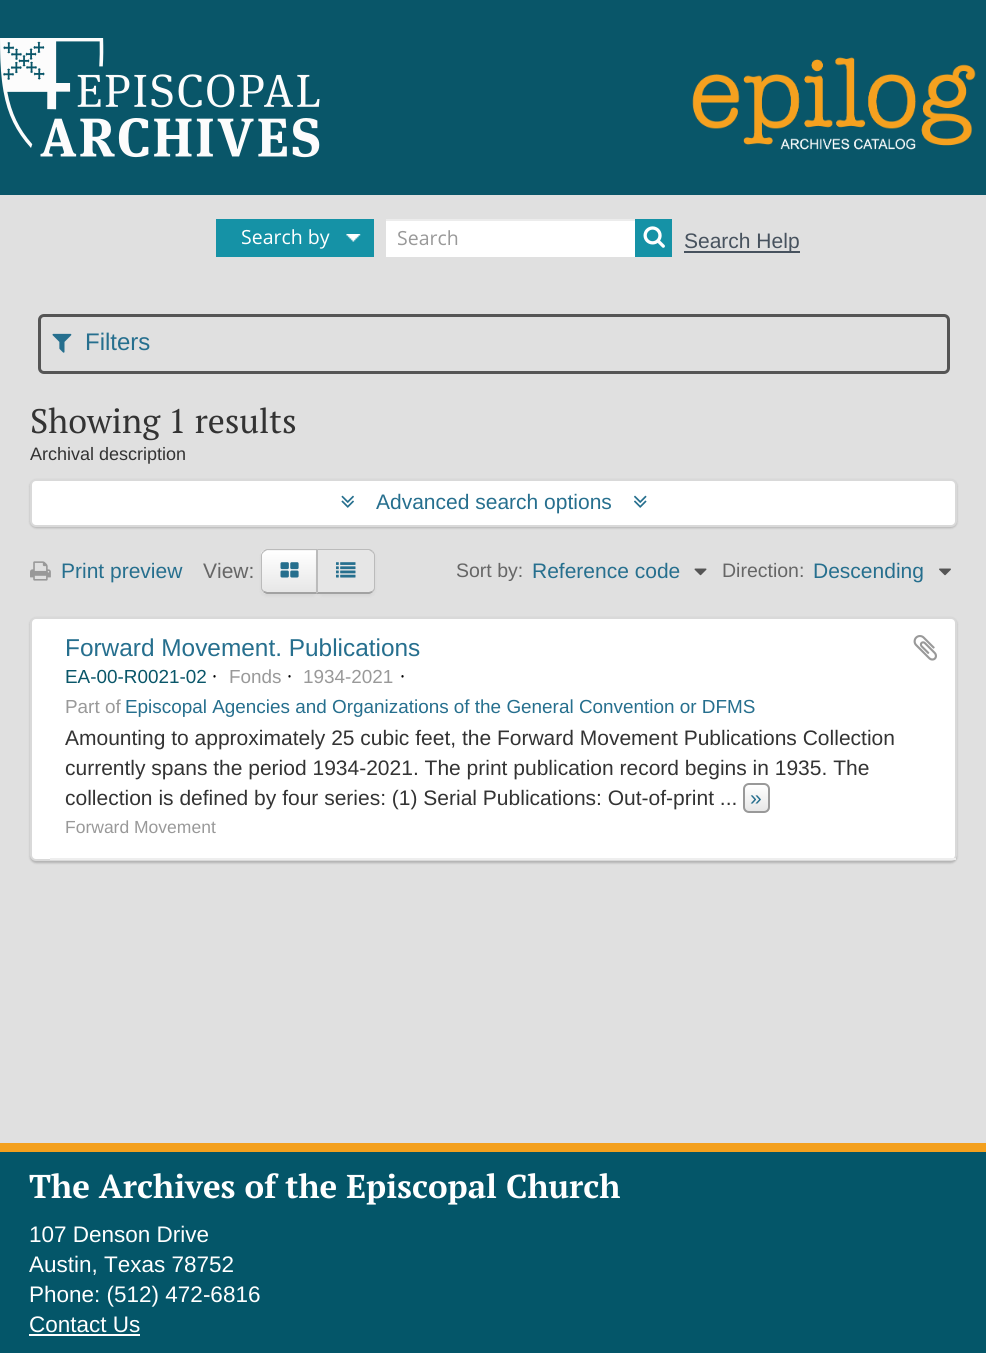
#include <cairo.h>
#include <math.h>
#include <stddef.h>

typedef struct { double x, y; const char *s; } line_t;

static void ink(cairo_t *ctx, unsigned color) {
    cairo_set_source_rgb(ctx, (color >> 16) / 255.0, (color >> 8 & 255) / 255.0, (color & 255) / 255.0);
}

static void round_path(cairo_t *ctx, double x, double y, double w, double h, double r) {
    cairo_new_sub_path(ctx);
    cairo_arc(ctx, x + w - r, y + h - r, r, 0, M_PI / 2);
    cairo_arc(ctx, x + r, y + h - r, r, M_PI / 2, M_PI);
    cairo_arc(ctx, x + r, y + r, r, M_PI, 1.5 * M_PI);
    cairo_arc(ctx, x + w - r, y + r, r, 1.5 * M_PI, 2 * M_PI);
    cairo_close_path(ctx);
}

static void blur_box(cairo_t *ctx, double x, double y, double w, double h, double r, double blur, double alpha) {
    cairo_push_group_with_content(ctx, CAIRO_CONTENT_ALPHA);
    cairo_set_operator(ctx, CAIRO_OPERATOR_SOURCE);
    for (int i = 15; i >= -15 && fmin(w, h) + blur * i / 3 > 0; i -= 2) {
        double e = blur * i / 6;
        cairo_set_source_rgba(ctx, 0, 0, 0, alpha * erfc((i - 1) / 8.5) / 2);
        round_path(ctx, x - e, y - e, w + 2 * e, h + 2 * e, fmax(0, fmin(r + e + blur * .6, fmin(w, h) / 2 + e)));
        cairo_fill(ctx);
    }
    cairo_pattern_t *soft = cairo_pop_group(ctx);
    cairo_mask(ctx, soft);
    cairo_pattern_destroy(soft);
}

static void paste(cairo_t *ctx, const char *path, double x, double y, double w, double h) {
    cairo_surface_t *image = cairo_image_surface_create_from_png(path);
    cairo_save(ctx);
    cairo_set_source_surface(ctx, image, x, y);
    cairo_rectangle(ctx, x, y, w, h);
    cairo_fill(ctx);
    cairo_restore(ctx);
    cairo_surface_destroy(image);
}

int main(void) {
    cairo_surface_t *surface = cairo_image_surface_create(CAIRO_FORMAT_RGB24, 986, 1353);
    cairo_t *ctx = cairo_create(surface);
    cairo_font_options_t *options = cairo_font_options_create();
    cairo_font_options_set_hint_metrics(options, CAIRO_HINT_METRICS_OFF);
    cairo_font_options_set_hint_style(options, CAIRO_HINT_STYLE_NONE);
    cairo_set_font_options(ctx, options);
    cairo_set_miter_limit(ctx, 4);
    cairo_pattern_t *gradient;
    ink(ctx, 0xE0E0E0);
    cairo_paint(ctx);
    ink(ctx, 0x095669);
    cairo_rectangle(ctx, 0, 0, 986, 195);
    cairo_fill(ctx);
    paste(ctx, "media/1.png", 0, 38, 320, 120);
    paste(ctx, "media/2.png", 692, 57, 284, 93);
    ink(ctx, 0x1592A6);
    cairo_rectangle(ctx, 216, 219, 158, 38);
    cairo_fill(ctx);
    paste(ctx, "media/3.png", 346, 234, 15, 8);
    cairo_select_font_face(ctx, "Open Sans", CAIRO_FONT_SLANT_NORMAL, CAIRO_FONT_WEIGHT_NORMAL);
    cairo_set_font_size(ctx, 19.5);
    ink(ctx, 0xFFFFFF);
    cairo_move_to(ctx, 241, 244);
    cairo_show_text(ctx, "Search by");
    cairo_rectangle(ctx, 386, 221, 249, 36);
    cairo_fill(ctx);
    ink(ctx, 0xECECEC);
    cairo_rectangle(ctx, 386, 219, 249, 2);
    cairo_fill(ctx);
    ink(ctx, 0x999999);
    cairo_move_to(ctx, 397, 245);
    cairo_show_text(ctx, "Search");
    ink(ctx, 0x1592A6);
    cairo_rectangle(ctx, 635, 219, 37, 38);
    cairo_fill(ctx);
    paste(ctx, "media/4.png", 643, 226, 22, 22);
    ink(ctx, 0x47525E);
    cairo_rectangle(ctx, 684, 251, 116, 2);
    cairo_fill(ctx);
    cairo_select_font_face(ctx, "Liberation Sans", CAIRO_FONT_SLANT_NORMAL, CAIRO_FONT_WEIGHT_NORMAL);
    cairo_set_font_size(ctx, 21);
    cairo_move_to(ctx, 684, 248);
    cairo_show_text(ctx, "Search Help");
    round_path(ctx, 39.5, 315.5, 909, 57, 4.5);
    ink(ctx, 0x555555);
    cairo_set_line_width(ctx, 3);
    cairo_stroke(ctx);
    paste(ctx, "media/5.png", 52, 333, 20, 20);
    cairo_set_font_size(ctx, 24);
    ink(ctx, 0x266F8E);
    cairo_move_to(ctx, 85, 350);
    cairo_show_text(ctx, "Filters");
    cairo_select_font_face(ctx, "PT Serif", CAIRO_FONT_SLANT_NORMAL, CAIRO_FONT_WEIGHT_NORMAL);
    cairo_set_font_size(ctx, 34);
    ink(ctx, 0x333333);
    cairo_move_to(ctx, 30, 433);
    cairo_show_text(ctx, "Showing 1 results");
    cairo_select_font_face(ctx, "Liberation Sans", CAIRO_FONT_SLANT_NORMAL, CAIRO_FONT_WEIGHT_NORMAL);
    cairo_set_font_size(ctx, 18);
    cairo_move_to(ctx, 30, 460);
    cairo_show_text(ctx, "Archival description");
    ink(ctx, 0x000000);
    blur_box(ctx, 30, 480, 927, 48, 6, 1, 0.2);
    ink(ctx, 0xFFFFFF);
    round_path(ctx, 31, 480, 925, 46, 5);
    cairo_fill_preserve(ctx);
    ink(ctx, 0xD9D9D9);
    cairo_set_line_width(ctx, 2);
    cairo_stroke(ctx);
    paste(ctx, "media/6.png", 341, 495, 13, 13);
    cairo_set_font_size(ctx, 21);
    ink(ctx, 0x266F8E);
    cairo_move_to(ctx, 376, 509);
    cairo_show_text(ctx, "Advanced search options");
    paste(ctx, "media/7.png", 634, 495, 13, 13);
    paste(ctx, "media/8.png", 30, 561, 21, 20);
    cairo_move_to(ctx, 61, 578);
    cairo_show_text(ctx, "Print preview");
    ink(ctx, 0x666666);
    cairo_move_to(ctx, 203, 578);
    cairo_show_text(ctx, "View:");
    ink(ctx, 0x000000);
    blur_box(ctx, 261, 551, 57, 45, 6, 1.5, 0.05);
    ink(ctx, 0xF5F5F5);
    cairo_new_path(ctx);
    cairo_move_to(ctx, 267, 549);
    cairo_line_to(ctx, 318, 549);
    cairo_line_to(ctx, 318, 594);
    cairo_line_to(ctx, 267, 594);
    cairo_curve_to(ctx, 263.5, 594, 261, 591.5, 261, 588);
    cairo_line_to(ctx, 261, 555);
    cairo_curve_to(ctx, 261, 551.5, 263.5, 549, 267, 549);
    cairo_close_path(ctx);
    cairo_fill(ctx);
    cairo_save(ctx);
    cairo_new_path(ctx);
    cairo_move_to(ctx, 267, 549);
    cairo_line_to(ctx, 318, 549);
    cairo_line_to(ctx, 318, 594);
    cairo_line_to(ctx, 267, 594);
    cairo_curve_to(ctx, 263.5, 594, 261, 591.5, 261, 588);
    cairo_line_to(ctx, 261, 555);
    cairo_curve_to(ctx, 261, 551.5, 263.5, 549, 267, 549);
    cairo_close_path(ctx);
    cairo_clip(ctx);
    gradient = cairo_pattern_create_linear(290, 551, 290, 593);
    cairo_pattern_add_color_stop_rgba(gradient, 0, 1, 1, 1, 1);
    cairo_pattern_add_color_stop_rgba(gradient, 1, 0.902, 0.902, 0.902, 1);
    cairo_set_source(ctx, gradient);
    cairo_pattern_destroy(gradient);
    cairo_rectangle(ctx, 261, 551, 55, 42);
    cairo_fill(ctx);
    cairo_restore(ctx);
    cairo_set_source_rgba(ctx, 1, 1, 1, 0.2);
    cairo_new_path(ctx);
    cairo_move_to(ctx, 267, 552);
    cairo_line_to(ctx, 316, 552);
    cairo_line_to(ctx, 316, 593);
    cairo_line_to(ctx, 317, 593);
    cairo_line_to(ctx, 317, 551);
    cairo_line_to(ctx, 268, 551);
    cairo_curve_to(ctx, 266, 551, 265, 552, 264, 553);
    cairo_close_path(ctx);
    cairo_fill(ctx);
    ink(ctx, 0xBBBBBB);
    cairo_new_path(ctx);
    cairo_move_to(ctx, 267, 549);
    cairo_curve_to(ctx, 266, 549, 264, 550, 263, 551);
    cairo_line_to(ctx, 264, 552);
    cairo_line_to(ctx, 267, 550);
    cairo_line_to(ctx, 316, 550);
    cairo_line_to(ctx, 316, 551);
    cairo_line_to(ctx, 318, 549);
    cairo_close_path(ctx);
    cairo_fill(ctx);
    ink(ctx, 0xA2A2A2);
    cairo_new_path(ctx);
    cairo_move_to(ctx, 318, 594);
    cairo_line_to(ctx, 316, 592);
    cairo_line_to(ctx, 267, 592);
    cairo_line_to(ctx, 264, 591);
    cairo_line_to(ctx, 263, 592);
    cairo_curve_to(ctx, 264, 593, 266, 594, 267, 594);
    cairo_close_path(ctx);
    cairo_fill(ctx);
    ink(ctx, 0xBBBBBB);
    cairo_new_path(ctx);
    cairo_move_to(ctx, 261, 555);
    cairo_line_to(ctx, 261, 588);
    cairo_curve_to(ctx, 261, 590, 262, 591, 263, 592);
    cairo_line_to(ctx, 264, 591);
    cairo_curve_to(ctx, 263, 590, 262, 589, 262, 588);
    cairo_line_to(ctx, 262, 555);
    cairo_curve_to(ctx, 262, 554, 263, 553, 264, 552);
    cairo_line_to(ctx, 263, 551);
    cairo_curve_to(ctx, 262, 552, 261, 554, 261, 555);
    cairo_close_path(ctx);
    cairo_fill(ctx);
    paste(ctx, "media/9.png", 280, 562, 19, 16);
    ink(ctx, 0x000000);
    blur_box(ctx, 317, 551, 58, 45, 6, 1.5, 0.05);
    ink(ctx, 0xE6E6E6);
    cairo_new_path(ctx);
    cairo_move_to(ctx, 317, 549);
    cairo_line_to(ctx, 369, 549);
    cairo_curve_to(ctx, 372.5, 549, 375, 551.5, 375, 555);
    cairo_line_to(ctx, 375, 588);
    cairo_curve_to(ctx, 375, 591.5, 372.5, 594, 369, 594);
    cairo_line_to(ctx, 317, 594);
    cairo_close_path(ctx);
    cairo_fill(ctx);
    ink(ctx, 0xBBBBBB);
    cairo_new_path(ctx);
    cairo_move_to(ctx, 318, 550);
    cairo_line_to(ctx, 369, 550);
    cairo_line_to(ctx, 372, 552);
    cairo_line_to(ctx, 373, 551);
    cairo_curve_to(ctx, 372, 550, 370, 549, 369, 549);
    cairo_line_to(ctx, 316, 549);
    cairo_close_path(ctx);
    cairo_fill(ctx);
    cairo_new_path(ctx);
    cairo_move_to(ctx, 375, 588);
    cairo_line_to(ctx, 375, 555);
    cairo_curve_to(ctx, 375, 554, 374, 552, 373, 551);
    cairo_line_to(ctx, 372, 552);
    cairo_curve_to(ctx, 373, 553, 374, 554, 374, 555);
    cairo_line_to(ctx, 374, 588);
    cairo_curve_to(ctx, 374, 589, 373, 590, 372, 591);
    cairo_line_to(ctx, 373, 592);
    cairo_curve_to(ctx, 374, 591, 375, 590, 375, 588);
    cairo_close_path(ctx);
    cairo_fill(ctx);
    ink(ctx, 0xA2A2A2);
    cairo_new_path(ctx);
    cairo_move_to(ctx, 316, 594);
    cairo_line_to(ctx, 369, 594);
    cairo_curve_to(ctx, 370, 594, 372, 593, 373, 592);
    cairo_line_to(ctx, 372, 591);
    cairo_line_to(ctx, 369, 592);
    cairo_line_to(ctx, 318, 592);
    cairo_close_path(ctx);
    cairo_fill(ctx);
    ink(ctx, 0xBBBBBB);
    cairo_new_path(ctx);
    cairo_move_to(ctx, 316, 594);
    cairo_line_to(ctx, 318, 592);
    cairo_line_to(ctx, 318, 550);
    cairo_line_to(ctx, 316, 549);
    cairo_close_path(ctx);
    cairo_fill(ctx);
    paste(ctx, "media/10.png", 336, 562, 20, 16);
    cairo_set_font_size(ctx, 19.5);
    ink(ctx, 0x666666);
    cairo_move_to(ctx, 456, 577);
    cairo_show_text(ctx, "Sort by:");
    cairo_set_font_size(ctx, 21);
    ink(ctx, 0x266F8E);
    cairo_move_to(ctx, 532, 578);
    cairo_show_text(ctx, "Reference code");
    paste(ctx, "media/11.png", 694, 568, 13, 8);
    cairo_set_font_size(ctx, 19.5);
    ink(ctx, 0x666666);
    cairo_move_to(ctx, 722, 577);
    cairo_show_text(ctx, "Direction:");
    cairo_set_font_size(ctx, 21);
    ink(ctx, 0x266F8E);
    cairo_move_to(ctx, 813, 578);
    cairo_show_text(ctx, "Descending");
    paste(ctx, "media/12.png", 939, 568, 12, 8);
    ink(ctx, 0x000000);
    blur_box(ctx, 30, 618, 927, 245, 6, 1, 0.2);
    ink(ctx, 0xFFFFFF);
    round_path(ctx, 31, 618, 925, 242, 5);
    cairo_fill_preserve(ctx);
    ink(ctx, 0xD9D9D9);
    cairo_stroke(ctx);
    ink(ctx, 0xEEEEEE);
    cairo_rectangle(ctx, 50, 858, 906, 2);
    cairo_fill(ctx);
    cairo_set_font_size(ctx, 24.4);
    ink(ctx, 0x266F8E);
    cairo_move_to(ctx, 65, 656);
    cairo_show_text(ctx, "Forward Movement. Publications");
    paste(ctx, "media/13.png", 913, 635, 24, 26);
    cairo_set_font_size(ctx, 18.9);
    ink(ctx, 0x095669);
    cairo_move_to(ctx, 65, 683);
    cairo_show_text(ctx, "EA-00-R0021-02");
    cairo_select_font_face(ctx, "Open Sans", CAIRO_FONT_SLANT_NORMAL, CAIRO_FONT_WEIGHT_NORMAL);
    ink(ctx, 0x000000);
    cairo_move_to(ctx, 212, 683);
    cairo_show_text(ctx, "·");
    cairo_select_font_face(ctx, "Liberation Sans", CAIRO_FONT_SLANT_NORMAL, CAIRO_FONT_WEIGHT_NORMAL);
    ink(ctx, 0x999999);
    cairo_move_to(ctx, 229, 683);
    cairo_show_text(ctx, "Fonds");
    cairo_select_font_face(ctx, "Open Sans", CAIRO_FONT_SLANT_NORMAL, CAIRO_FONT_WEIGHT_NORMAL);
    ink(ctx, 0x000000);
    cairo_move_to(ctx, 287, 683);
    cairo_show_text(ctx, "·");
    cairo_select_font_face(ctx, "Liberation Sans", CAIRO_FONT_SLANT_NORMAL, CAIRO_FONT_WEIGHT_NORMAL);
    ink(ctx, 0x999999);
    cairo_move_to(ctx, 303, 683);
    cairo_show_text(ctx, "1934-2021");
    cairo_select_font_face(ctx, "Open Sans", CAIRO_FONT_SLANT_NORMAL, CAIRO_FONT_WEIGHT_NORMAL);
    ink(ctx, 0x000000);
    cairo_move_to(ctx, 400, 683);
    cairo_show_text(ctx, "·");
    cairo_select_font_face(ctx, "Liberation Sans", CAIRO_FONT_SLANT_NORMAL, CAIRO_FONT_WEIGHT_NORMAL);
    ink(ctx, 0x999999);
    cairo_move_to(ctx, 65, 713);
    cairo_show_text(ctx, "Part of");
    ink(ctx, 0x266F8E);
    cairo_move_to(ctx, 125, 713);
    cairo_show_text(ctx, "Episcopal Agencies and Organizations of the General Convention or DFMS");
    cairo_set_font_size(ctx, 21);
    ink(ctx, 0x333333);
    {
        static const line_t items[] = {
            {65, 745, "Amounting to approximately 25 cubic feet, the Forward Movement Publications Collection"},
            {65, 775, "currently spans the period 1934-2021. The print publication record begins in 1935. The"},
            {65, 805, "collection is defined by four series: (1) Serial Publications: Out-of-print ..."},
        };
        for (size_t i = 0; i < sizeof items / sizeof *items; i++) {
            cairo_move_to(ctx, items[i].x, items[i].y);
            cairo_show_text(ctx, items[i].s);
        }
    }
    cairo_save(ctx);
    round_path(ctx, 743, 783, 27, 30, 6);
    cairo_clip(ctx);
    gradient = cairo_pattern_create_linear(756, 785, 756, 812);
    cairo_pattern_add_color_stop_rgba(gradient, 0, 1, 1, 1, 1);
    cairo_pattern_add_color_stop_rgba(gradient, 1, 0.902, 0.902, 0.902, 1);
    cairo_set_source(ctx, gradient);
    cairo_pattern_destroy(gradient);
    cairo_rectangle(ctx, 743, 785, 27, 27);
    cairo_fill(ctx);
    cairo_restore(ctx);
    round_path(ctx, 744, 784, 25, 28, 5);
    ink(ctx, 0x999999);
    cairo_stroke(ctx);
    ink(ctx, 0x266F8E);
    cairo_move_to(ctx, 750, 805);
    cairo_show_text(ctx, "»");
    cairo_set_font_size(ctx, 17.5);
    ink(ctx, 0x999999);
    cairo_move_to(ctx, 65, 833);
    cairo_show_text(ctx, "Forward Movement");
    ink(ctx, 0x045669);
    cairo_rectangle(ctx, 0, 1152, 986, 201);
    cairo_fill(ctx);
    ink(ctx, 0xF3A01E);
    cairo_rectangle(ctx, 0, 1143, 986, 9);
    cairo_fill(ctx);
    cairo_select_font_face(ctx, "PT Serif", CAIRO_FONT_SLANT_NORMAL, CAIRO_FONT_WEIGHT_BOLD);
    cairo_set_font_size(ctx, 33);
    ink(ctx, 0xFFFFFF);
    cairo_move_to(ctx, 29, 1198);
    cairo_show_text(ctx, "The Archives of the Episcopal Church");
    cairo_select_font_face(ctx, "Liberation Sans", CAIRO_FONT_SLANT_NORMAL, CAIRO_FONT_WEIGHT_NORMAL);
    cairo_set_font_size(ctx, 22.5);
    {
        static const line_t items[] = {
            {29, 1242, "107 Denson Drive"},
            {29, 1272, "Austin, Texas 78752"},
            {29, 1302, "Phone: (512) 472-6816"},
            {29, 1332, "Contact Us"},
        };
        for (size_t i = 0; i < sizeof items / sizeof *items; i++) {
            cairo_move_to(ctx, items[i].x, items[i].y);
            cairo_show_text(ctx, items[i].s);
        }
    }
    cairo_rectangle(ctx, 29, 1334, 111, 2);
    cairo_fill(ctx);
    cairo_surface_write_to_png(surface, "image.png");
    cairo_font_options_destroy(options);
    cairo_destroy(ctx);
    cairo_surface_destroy(surface);
    return 0;
}
